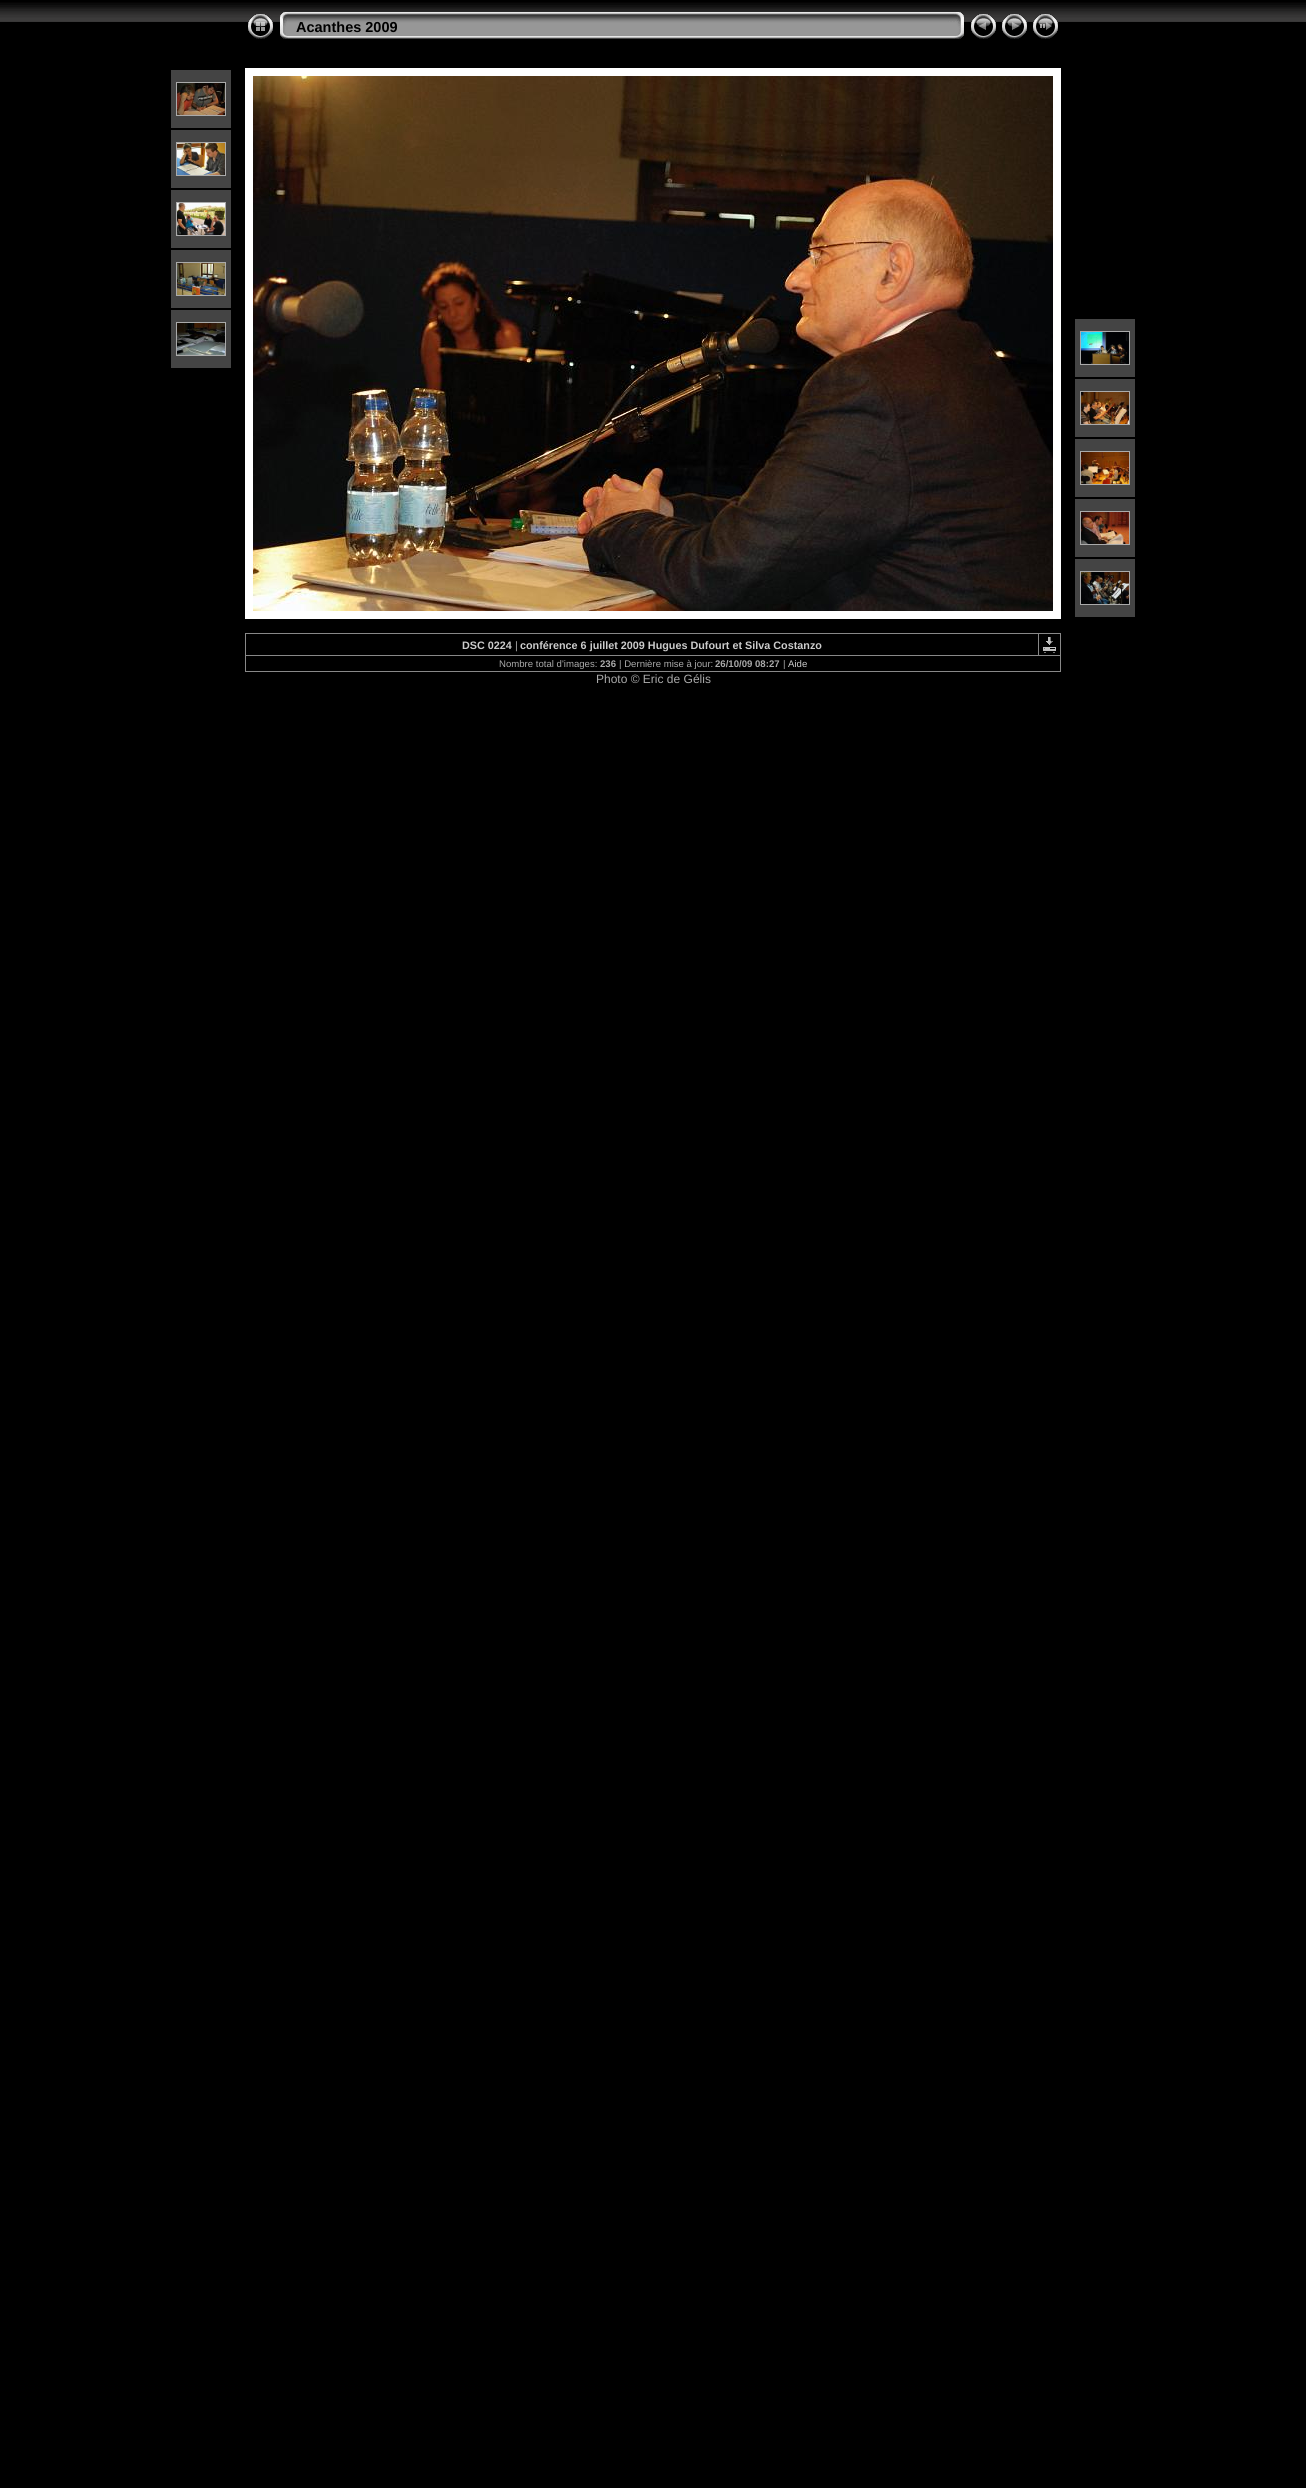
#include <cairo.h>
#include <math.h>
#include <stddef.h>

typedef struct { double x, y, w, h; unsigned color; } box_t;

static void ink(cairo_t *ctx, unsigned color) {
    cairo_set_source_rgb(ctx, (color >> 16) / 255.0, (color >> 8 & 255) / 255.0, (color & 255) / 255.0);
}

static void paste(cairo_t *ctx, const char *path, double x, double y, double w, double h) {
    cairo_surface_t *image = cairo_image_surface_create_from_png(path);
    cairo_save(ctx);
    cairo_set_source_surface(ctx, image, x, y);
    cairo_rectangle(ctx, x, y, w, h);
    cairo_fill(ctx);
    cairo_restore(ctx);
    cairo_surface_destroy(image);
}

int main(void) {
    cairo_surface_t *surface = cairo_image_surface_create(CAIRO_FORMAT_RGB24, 1306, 2488);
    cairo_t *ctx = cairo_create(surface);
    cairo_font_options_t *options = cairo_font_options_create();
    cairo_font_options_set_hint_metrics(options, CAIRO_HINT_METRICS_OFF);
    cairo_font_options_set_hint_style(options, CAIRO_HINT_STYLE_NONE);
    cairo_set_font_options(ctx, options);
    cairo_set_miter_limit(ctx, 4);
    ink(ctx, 0x000000);
    cairo_paint(ctx);
    paste(ctx, "media/1.png", 0, 2, 1306, 20);
    paste(ctx, "media/2.png", 248, 14, 25, 25);
    paste(ctx, "media/3.png", 280, 12, 16, 27);
    paste(ctx, "media/4.png", 296, 12, 652, 27);
    cairo_select_font_face(ctx, "Liberation Sans", CAIRO_FONT_SLANT_NORMAL, CAIRO_FONT_WEIGHT_BOLD);
    cairo_set_font_size(ctx, 14.5);
    ink(ctx, 0x000000);
    cairo_move_to(ctx, 296, 32);
    cairo_show_text(ctx, "Acanthes 2009");
    paste(ctx, "media/5.png", 948, 12, 16, 27);
    paste(ctx, "media/6.png", 971, 14, 25, 25);
    paste(ctx, "media/7.png", 1002, 14, 25, 25);
    paste(ctx, "media/8.png", 1033, 14, 25, 25);
    ink(ctx, 0x444444);
    cairo_rectangle(ctx, 171, 70, 60, 58);
    cairo_fill(ctx);
    cairo_rectangle(ctx, 176.5, 82.5, 49, 33);
    ink(ctx, 0xAAAAAA);
    cairo_set_line_width(ctx, 1);
    cairo_stroke(ctx);
    paste(ctx, "media/9.png", 177, 83, 48, 32);
    ink(ctx, 0x444444);
    cairo_rectangle(ctx, 171, 130, 60, 58);
    cairo_fill(ctx);
    cairo_rectangle(ctx, 176.5, 142.5, 49, 33);
    ink(ctx, 0xAAAAAA);
    cairo_stroke(ctx);
    paste(ctx, "media/10.png", 177, 143, 48, 32);
    ink(ctx, 0x444444);
    cairo_rectangle(ctx, 171, 190, 60, 58);
    cairo_fill(ctx);
    cairo_rectangle(ctx, 176.5, 202.5, 49, 33);
    ink(ctx, 0xAAAAAA);
    cairo_stroke(ctx);
    paste(ctx, "media/11.png", 177, 203, 48, 32);
    ink(ctx, 0x444444);
    cairo_rectangle(ctx, 171, 250, 60, 58);
    cairo_fill(ctx);
    cairo_rectangle(ctx, 176.5, 262.5, 49, 33);
    ink(ctx, 0xAAAAAA);
    cairo_stroke(ctx);
    paste(ctx, "media/12.png", 177, 263, 48, 32);
    ink(ctx, 0x444444);
    cairo_rectangle(ctx, 171, 310, 60, 58);
    cairo_fill(ctx);
    cairo_rectangle(ctx, 176.5, 322.5, 49, 33);
    ink(ctx, 0xAAAAAA);
    cairo_stroke(ctx);
    paste(ctx, "media/13.png", 177, 323, 48, 32);
    cairo_rectangle(ctx, 249, 72, 808, 543);
    ink(ctx, 0xFFFFFF);
    cairo_set_line_width(ctx, 8);
    cairo_stroke(ctx);
    paste(ctx, "media/14.png", 253, 76, 800, 535);
    ink(ctx, 0x444444);
    cairo_rectangle(ctx, 1075, 319, 60, 58);
    cairo_fill(ctx);
    cairo_rectangle(ctx, 1080.5, 331.5, 49, 33);
    ink(ctx, 0xAAAAAA);
    cairo_set_line_width(ctx, 1);
    cairo_stroke(ctx);
    paste(ctx, "media/15.png", 1081, 332, 48, 32);
    ink(ctx, 0x444444);
    cairo_rectangle(ctx, 1075, 379, 60, 58);
    cairo_fill(ctx);
    cairo_rectangle(ctx, 1080.5, 391.5, 49, 33);
    ink(ctx, 0xAAAAAA);
    cairo_stroke(ctx);
    paste(ctx, "media/16.png", 1081, 392, 48, 32);
    ink(ctx, 0x444444);
    cairo_rectangle(ctx, 1075, 439, 60, 58);
    cairo_fill(ctx);
    cairo_rectangle(ctx, 1080.5, 451.5, 49, 33);
    ink(ctx, 0xAAAAAA);
    cairo_stroke(ctx);
    paste(ctx, "media/17.png", 1081, 452, 48, 32);
    ink(ctx, 0x444444);
    cairo_rectangle(ctx, 1075, 499, 60, 58);
    cairo_fill(ctx);
    cairo_rectangle(ctx, 1080.5, 511.5, 49, 33);
    ink(ctx, 0xAAAAAA);
    cairo_stroke(ctx);
    paste(ctx, "media/18.png", 1081, 512, 48, 32);
    ink(ctx, 0x444444);
    cairo_rectangle(ctx, 1075, 559, 60, 58);
    cairo_fill(ctx);
    cairo_rectangle(ctx, 1080.5, 571.5, 49, 33);
    ink(ctx, 0xAAAAAA);
    cairo_stroke(ctx);
    paste(ctx, "media/19.png", 1081, 572, 48, 32);
    {
        static const box_t items[] = {
            {245, 633, 816, 1, 0x888888},
            {1060, 633, 1, 39, 0x888888},
            {245, 671, 816, 1, 0x888888},
            {245, 633, 1, 39, 0x888888},
        };
        for (size_t i = 0; i < sizeof items / sizeof *items; i++) {
            ink(ctx, items[i].color);
            cairo_rectangle(ctx, items[i].x, items[i].y, items[i].w, items[i].h);
            cairo_fill(ctx);
        }
    }
    cairo_set_font_size(ctx, 10.8);
    ink(ctx, 0xCCCCCC);
    cairo_move_to(ctx, 462, 649);
    cairo_show_text(ctx, "DSC 0224");
    cairo_select_font_face(ctx, "Liberation Sans", CAIRO_FONT_SLANT_NORMAL, CAIRO_FONT_WEIGHT_NORMAL);
    ink(ctx, 0xAAAAAA);
    cairo_move_to(ctx, 515, 649);
    cairo_show_text(ctx, "|");
    cairo_select_font_face(ctx, "Liberation Sans", CAIRO_FONT_SLANT_NORMAL, CAIRO_FONT_WEIGHT_BOLD);
    ink(ctx, 0xCCCCCC);
    cairo_move_to(ctx, 520, 649);
    cairo_show_text(ctx, "conférence 6 juillet 2009 Hugues Dufourt et Silva Costanzo");
    ink(ctx, 0x888888);
    cairo_rectangle(ctx, 245, 655, 816, 1);
    cairo_fill(ctx);
    cairo_rectangle(ctx, 1038, 633, 1, 23);
    cairo_fill(ctx);
    paste(ctx, "media/20.png", 1043, 637, 13, 16);
    cairo_select_font_face(ctx, "Liberation Sans", CAIRO_FONT_SLANT_NORMAL, CAIRO_FONT_WEIGHT_NORMAL);
    cairo_set_font_size(ctx, 9.6);
    ink(ctx, 0xAAAAAA);
    cairo_move_to(ctx, 499, 667);
    cairo_show_text(ctx, "Nombre total d'images:");
    cairo_select_font_face(ctx, "Liberation Sans", CAIRO_FONT_SLANT_NORMAL, CAIRO_FONT_WEIGHT_BOLD);
    cairo_move_to(ctx, 600, 667);
    cairo_show_text(ctx, "236");
    cairo_select_font_face(ctx, "Liberation Sans", CAIRO_FONT_SLANT_NORMAL, CAIRO_FONT_WEIGHT_NORMAL);
    cairo_move_to(ctx, 619, 667);
    cairo_show_text(ctx, "| Dernière mise à jour:");
    cairo_select_font_face(ctx, "Liberation Sans", CAIRO_FONT_SLANT_NORMAL, CAIRO_FONT_WEIGHT_BOLD);
    cairo_move_to(ctx, 715, 667);
    cairo_show_text(ctx, "26/10/09 08:27");
    cairo_select_font_face(ctx, "Liberation Sans", CAIRO_FONT_SLANT_NORMAL, CAIRO_FONT_WEIGHT_NORMAL);
    cairo_move_to(ctx, 783, 667);
    cairo_show_text(ctx, "|");
    ink(ctx, 0xCCCCCC);
    cairo_move_to(ctx, 788, 667);
    cairo_show_text(ctx, "Aide");
    cairo_set_font_size(ctx, 12);
    ink(ctx, 0xAAAAAA);
    cairo_move_to(ctx, 596, 683);
    cairo_show_text(ctx, "Photo © Eric de Gélis");
    cairo_surface_write_to_png(surface, "image.png");
    cairo_font_options_destroy(options);
    cairo_destroy(ctx);
    cairo_surface_destroy(surface);
    return 0;
}
